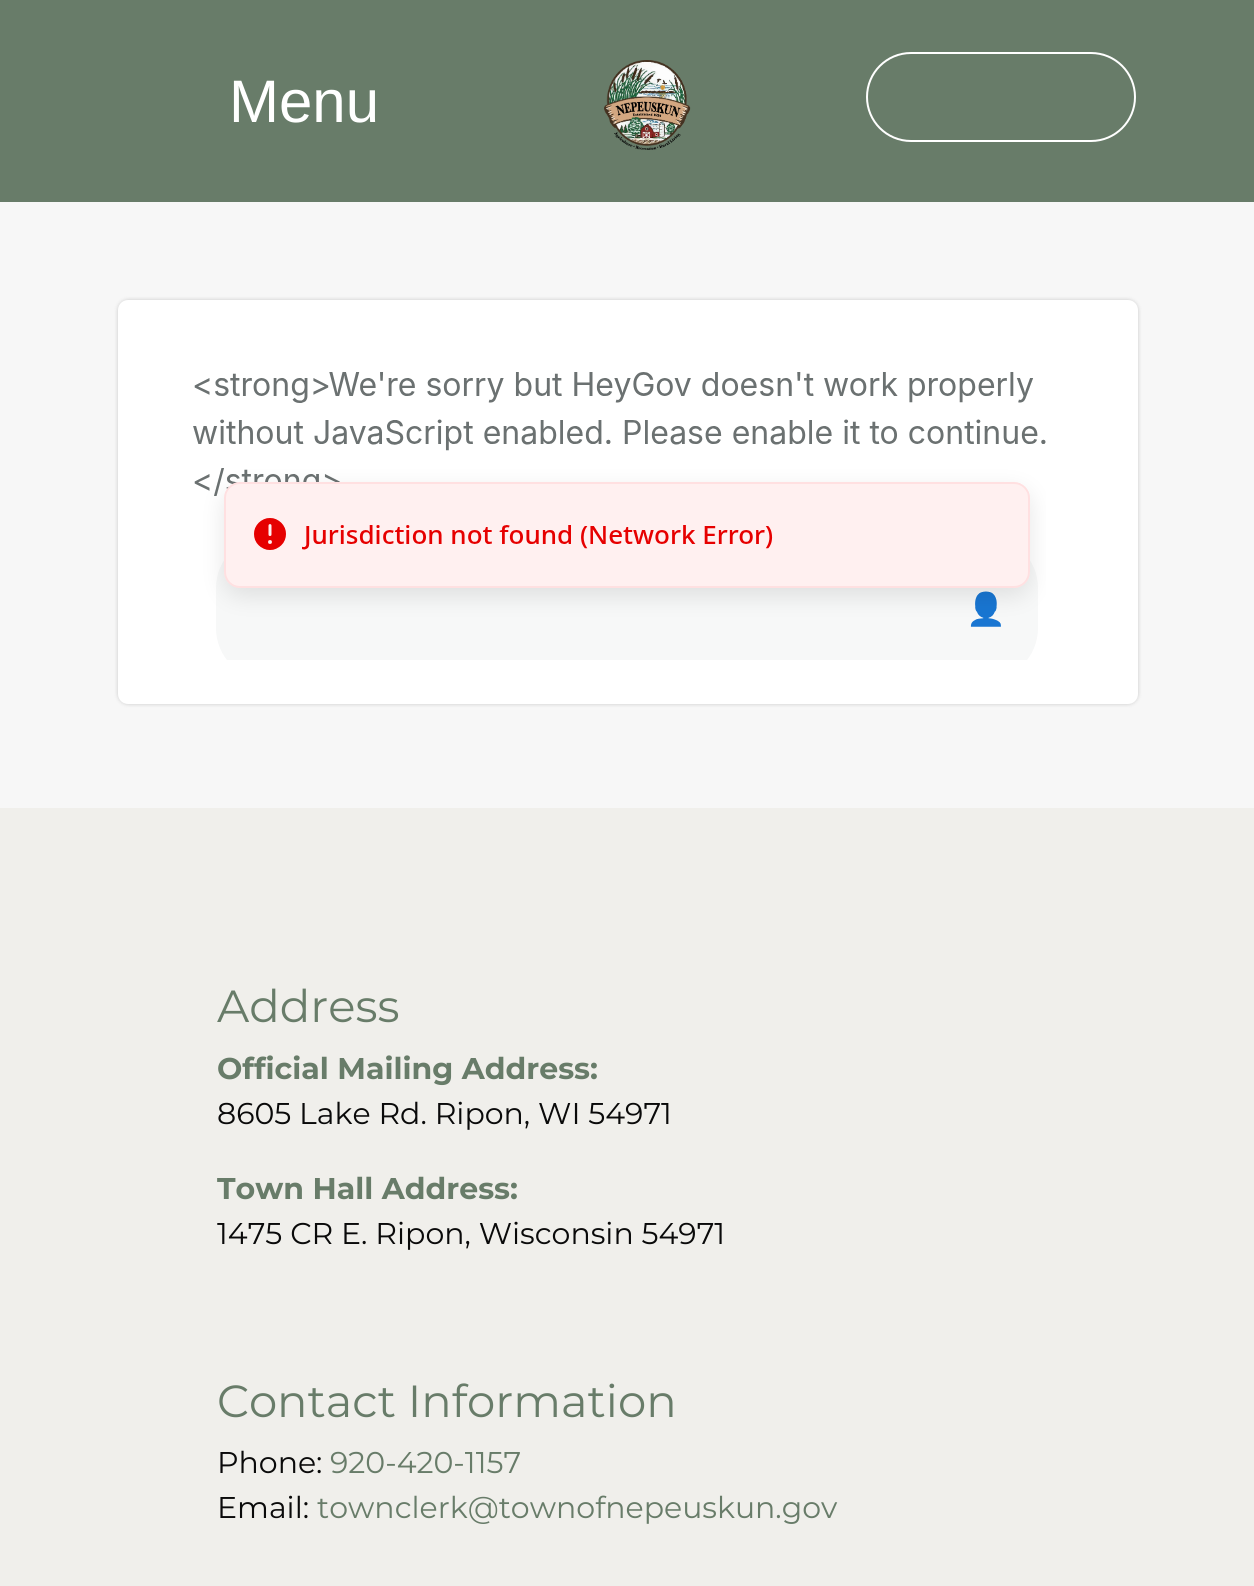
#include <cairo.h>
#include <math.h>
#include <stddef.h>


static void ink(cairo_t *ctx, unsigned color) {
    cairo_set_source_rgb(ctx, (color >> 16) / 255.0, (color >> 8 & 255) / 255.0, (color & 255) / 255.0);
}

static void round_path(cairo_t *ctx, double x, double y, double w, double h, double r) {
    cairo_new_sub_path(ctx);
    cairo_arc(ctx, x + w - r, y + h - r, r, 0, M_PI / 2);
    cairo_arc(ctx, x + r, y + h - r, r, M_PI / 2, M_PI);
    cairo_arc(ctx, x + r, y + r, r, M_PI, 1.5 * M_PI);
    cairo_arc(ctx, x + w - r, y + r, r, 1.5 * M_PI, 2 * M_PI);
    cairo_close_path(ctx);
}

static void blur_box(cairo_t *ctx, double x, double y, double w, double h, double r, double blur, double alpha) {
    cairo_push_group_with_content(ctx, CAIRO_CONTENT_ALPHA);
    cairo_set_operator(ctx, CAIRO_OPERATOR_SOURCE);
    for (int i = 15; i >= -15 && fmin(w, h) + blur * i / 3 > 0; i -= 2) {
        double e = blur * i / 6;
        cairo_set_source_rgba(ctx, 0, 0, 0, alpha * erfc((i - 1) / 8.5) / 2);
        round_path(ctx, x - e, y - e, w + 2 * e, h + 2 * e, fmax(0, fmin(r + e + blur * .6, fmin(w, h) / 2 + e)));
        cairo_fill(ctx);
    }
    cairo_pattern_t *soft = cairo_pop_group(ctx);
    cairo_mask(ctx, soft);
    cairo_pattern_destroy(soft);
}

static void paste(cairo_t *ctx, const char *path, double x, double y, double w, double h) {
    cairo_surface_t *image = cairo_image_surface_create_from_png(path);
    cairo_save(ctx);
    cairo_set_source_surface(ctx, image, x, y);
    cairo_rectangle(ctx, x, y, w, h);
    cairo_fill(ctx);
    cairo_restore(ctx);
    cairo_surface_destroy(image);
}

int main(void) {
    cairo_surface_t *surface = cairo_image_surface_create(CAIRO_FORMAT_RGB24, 1254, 1586);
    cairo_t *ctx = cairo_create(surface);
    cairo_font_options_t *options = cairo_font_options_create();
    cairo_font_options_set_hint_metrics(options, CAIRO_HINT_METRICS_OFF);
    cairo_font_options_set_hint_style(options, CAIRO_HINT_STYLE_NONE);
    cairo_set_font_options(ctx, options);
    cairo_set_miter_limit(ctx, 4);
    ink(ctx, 0xF7F7F7);
    cairo_paint(ctx);
    ink(ctx, 0x687C69);
    cairo_rectangle(ctx, 0, 0, 1254, 202);
    cairo_fill(ctx);
    cairo_select_font_face(ctx, "Liberation Sans", CAIRO_FONT_SLANT_NORMAL, CAIRO_FONT_WEIGHT_NORMAL);
    cairo_set_font_size(ctx, 60);
    ink(ctx, 0xFFFFFF);
    cairo_move_to(ctx, 229, 122);
    cairo_show_text(ctx, "Menu");
    paste(ctx, "media/1.png", 604, 60, 87, 90);
    round_path(ctx, 867, 53, 268, 88, 44);
    cairo_stroke(ctx);
    ink(ctx, 0x000000);
    blur_box(ctx, 118, 300, 1020, 404, 10, 2, 0.2);
    ink(ctx, 0xFFFFFF);
    round_path(ctx, 118, 300, 1020, 404, 10);
    cairo_fill(ctx);
    paste(ctx, "media/2.png", 193, 372, 853, 288);
    ink(ctx, 0xF0EFEB);
    cairo_rectangle(ctx, 0, 808, 1254, 778);
    cairo_fill(ctx);
    cairo_select_font_face(ctx, "Montserrat", CAIRO_FONT_SLANT_NORMAL, CAIRO_FONT_WEIGHT_NORMAL);
    cairo_set_font_size(ctx, 45);
    ink(ctx, 0x687C69);
    cairo_move_to(ctx, 217, 1022);
    cairo_show_text(ctx, "Address");
    cairo_select_font_face(ctx, "Montserrat", CAIRO_FONT_SLANT_NORMAL, CAIRO_FONT_WEIGHT_BOLD);
    cairo_set_font_size(ctx, 30);
    cairo_move_to(ctx, 217, 1079);
    cairo_show_text(ctx, "Official Mailing Address:");
    cairo_select_font_face(ctx, "Montserrat", CAIRO_FONT_SLANT_NORMAL, CAIRO_FONT_WEIGHT_NORMAL);
    ink(ctx, 0x0A0A0A);
    cairo_move_to(ctx, 217, 1124);
    cairo_show_text(ctx, "8605 Lake Rd. Ripon, WI 54971");
    cairo_select_font_face(ctx, "Montserrat", CAIRO_FONT_SLANT_NORMAL, CAIRO_FONT_WEIGHT_BOLD);
    ink(ctx, 0x687C69);
    cairo_move_to(ctx, 217, 1199);
    cairo_show_text(ctx, "Town Hall Address:");
    cairo_select_font_face(ctx, "Montserrat", CAIRO_FONT_SLANT_NORMAL, CAIRO_FONT_WEIGHT_NORMAL);
    ink(ctx, 0x0A0A0A);
    cairo_move_to(ctx, 217, 1244);
    cairo_show_text(ctx, "1475 CR E. Ripon, Wisconsin 54971");
    cairo_set_font_size(ctx, 45);
    ink(ctx, 0x687C69);
    cairo_move_to(ctx, 217, 1417);
    cairo_show_text(ctx, "Contact Information");
    cairo_set_font_size(ctx, 30);
    ink(ctx, 0x0A0A0A);
    cairo_move_to(ctx, 217, 1473);
    cairo_show_text(ctx, "Phone:");
    ink(ctx, 0x687C69);
    cairo_move_to(ctx, 330, 1473);
    cairo_show_text(ctx, "920-420-1157");
    ink(ctx, 0x0A0A0A);
    cairo_move_to(ctx, 217, 1518);
    cairo_show_text(ctx, "Email:");
    ink(ctx, 0x687C69);
    cairo_move_to(ctx, 317, 1518);
    cairo_show_text(ctx, "townclerk@townofnepeuskun.gov");
    cairo_surface_write_to_png(surface, "image.png");
    cairo_font_options_destroy(options);
    cairo_destroy(ctx);
    cairo_surface_destroy(surface);
    return 0;
}
